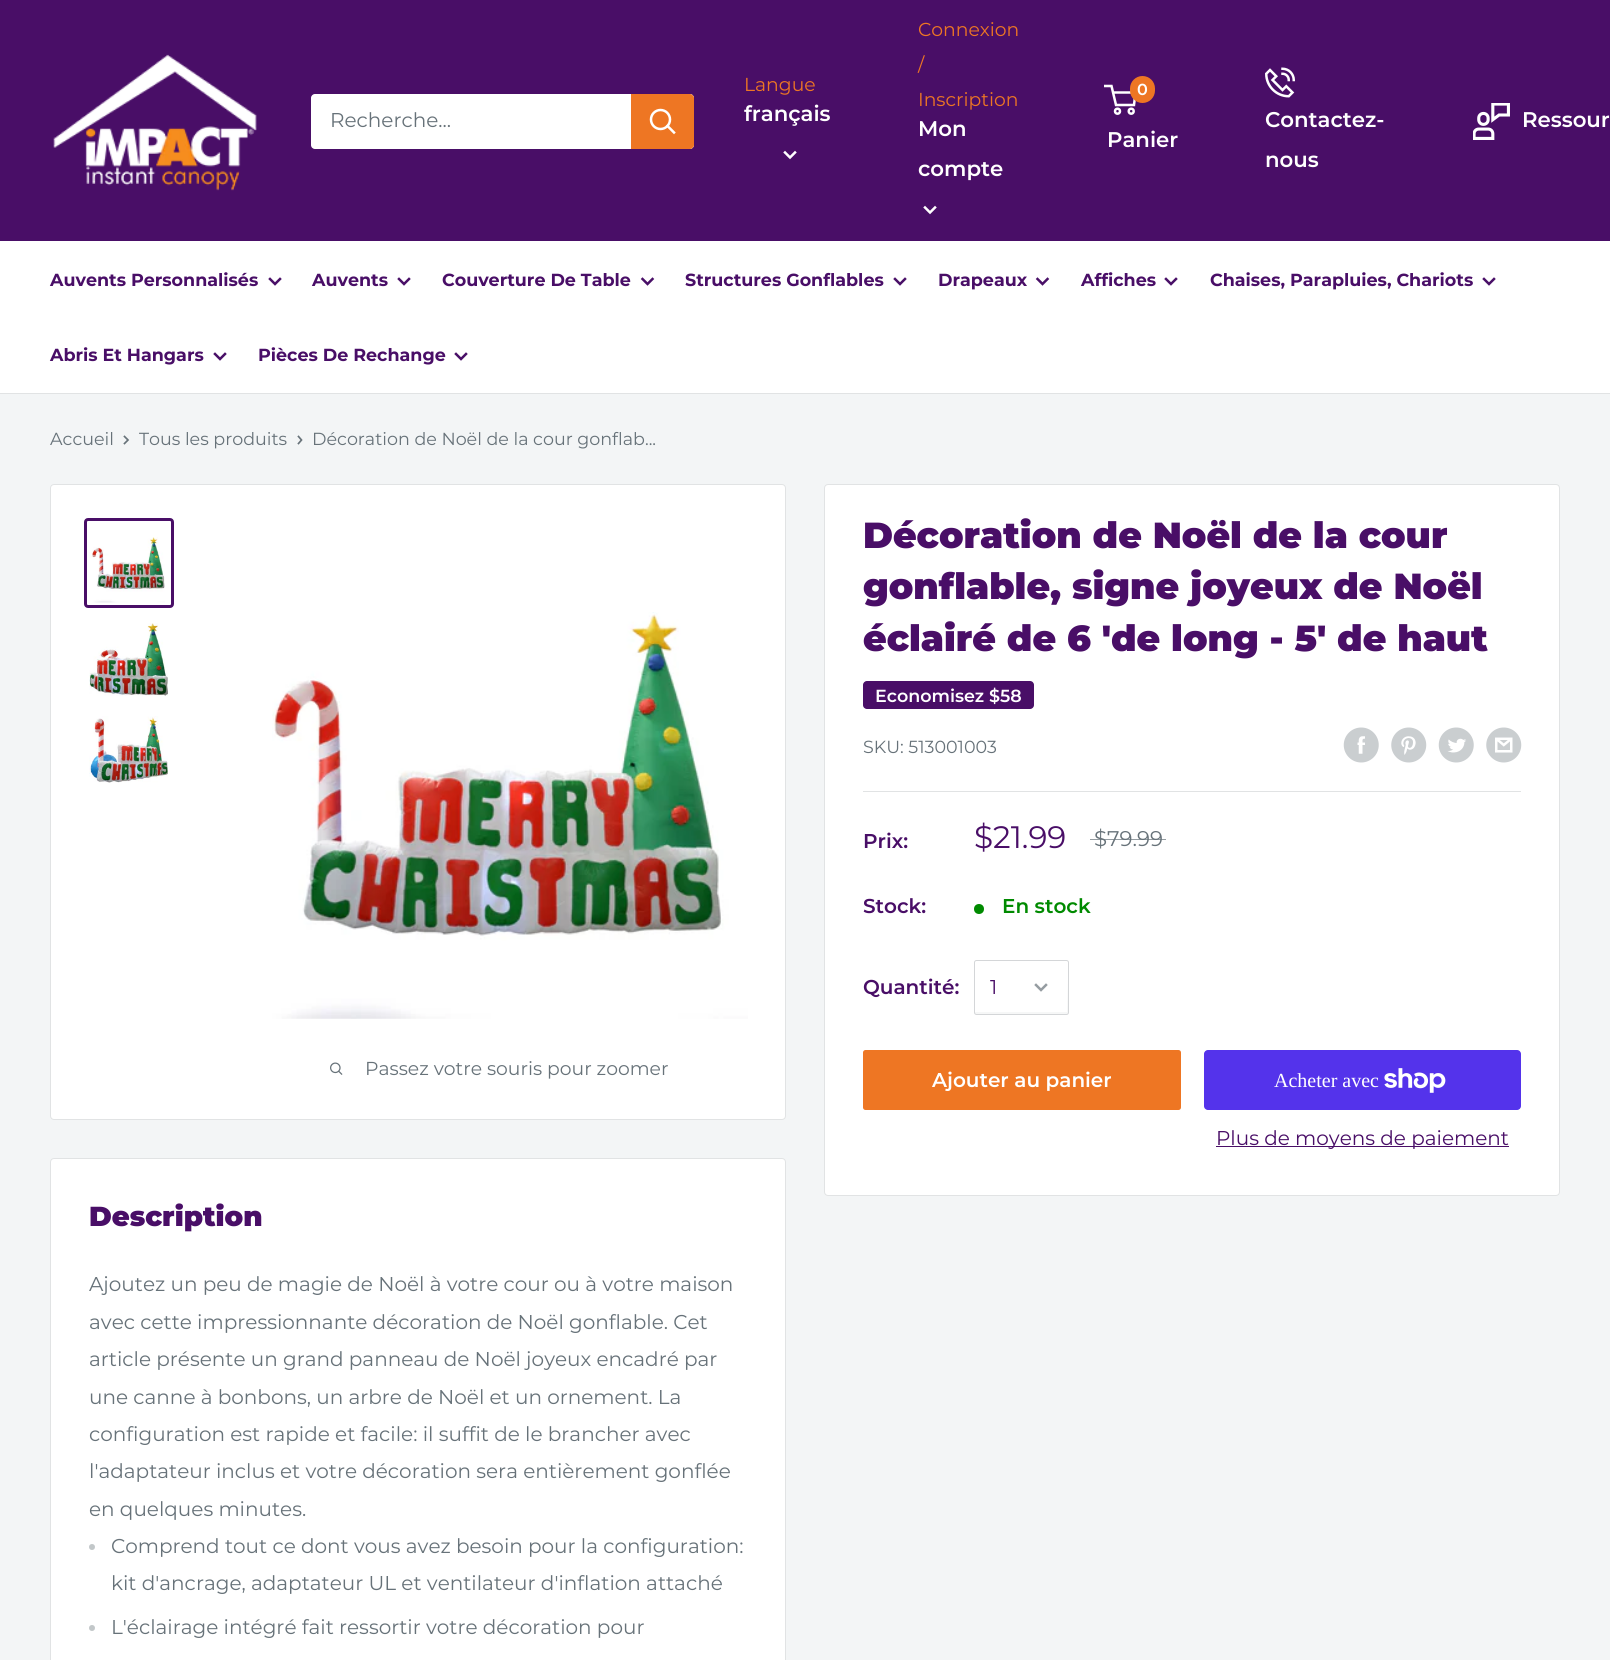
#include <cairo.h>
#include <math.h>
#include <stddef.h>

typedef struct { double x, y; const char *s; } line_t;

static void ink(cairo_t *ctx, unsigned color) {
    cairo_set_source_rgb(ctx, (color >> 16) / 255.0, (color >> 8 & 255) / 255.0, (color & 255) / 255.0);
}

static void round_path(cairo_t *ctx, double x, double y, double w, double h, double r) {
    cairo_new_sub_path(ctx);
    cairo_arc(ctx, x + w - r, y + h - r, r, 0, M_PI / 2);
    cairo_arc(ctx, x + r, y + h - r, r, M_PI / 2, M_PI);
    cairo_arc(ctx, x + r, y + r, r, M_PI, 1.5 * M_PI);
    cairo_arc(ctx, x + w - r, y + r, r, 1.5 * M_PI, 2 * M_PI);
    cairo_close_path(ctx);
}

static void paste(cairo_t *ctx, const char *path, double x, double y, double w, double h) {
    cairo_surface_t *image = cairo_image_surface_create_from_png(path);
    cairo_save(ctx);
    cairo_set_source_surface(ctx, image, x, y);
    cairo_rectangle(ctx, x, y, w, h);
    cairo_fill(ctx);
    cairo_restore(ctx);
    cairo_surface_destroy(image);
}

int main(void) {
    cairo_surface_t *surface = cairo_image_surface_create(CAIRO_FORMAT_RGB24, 1610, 1660);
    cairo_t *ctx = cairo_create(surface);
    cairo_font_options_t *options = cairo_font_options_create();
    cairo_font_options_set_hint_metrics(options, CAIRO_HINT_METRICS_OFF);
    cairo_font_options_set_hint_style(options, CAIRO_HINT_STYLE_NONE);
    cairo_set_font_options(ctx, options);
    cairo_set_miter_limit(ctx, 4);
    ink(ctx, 0xF3F5F6);
    cairo_paint(ctx);
    ink(ctx, 0x490E67);
    cairo_rectangle(ctx, 0, 0, 1610, 241);
    cairo_fill(ctx);
    paste(ctx, "media/1.png", 53, 54, 204, 137);
    ink(ctx, 0xFFFFFF);
    round_path(ctx, 311, 94, 383, 55, 4);
    cairo_fill(ctx);
    cairo_select_font_face(ctx, "Montserrat", CAIRO_FONT_SLANT_NORMAL, CAIRO_FONT_WEIGHT_NORMAL);
    cairo_set_font_size(ctx, 20);
    ink(ctx, 0x677279);
    cairo_move_to(ctx, 330, 127);
    cairo_show_text(ctx, "Recherche...");
    ink(ctx, 0xEE7623);
    cairo_new_path(ctx);
    cairo_move_to(ctx, 631, 94);
    cairo_line_to(ctx, 690, 94);
    cairo_curve_to(ctx, 692, 94, 694, 96, 694, 98);
    cairo_line_to(ctx, 694, 145);
    cairo_curve_to(ctx, 694, 147, 692, 149, 690, 149);
    cairo_line_to(ctx, 631, 149);
    cairo_close_path(ctx);
    cairo_fill(ctx);
    cairo_new_path(ctx);
    cairo_move_to(ctx, 674, 132.5);
    cairo_line_to(ctx, 667.5, 126);
    ink(ctx, 0xFFFFFF);
    cairo_set_line_width(ctx, 2.5);
    cairo_set_line_cap(ctx, CAIRO_LINE_CAP_SQUARE);
    cairo_stroke(ctx);
    cairo_arc(ctx, 660.5, 119.5, 9.5, 0, 2 * M_PI);
    cairo_set_line_cap(ctx, CAIRO_LINE_CAP_BUTT);
    cairo_stroke(ctx);
    cairo_set_font_size(ctx, 18.75);
    ink(ctx, 0xEE7623);
    cairo_move_to(ctx, 744, 91);
    cairo_show_text(ctx, "Langue");
    cairo_select_font_face(ctx, "Montserrat SemiBold", CAIRO_FONT_SLANT_NORMAL, CAIRO_FONT_WEIGHT_NORMAL);
    cairo_set_font_size(ctx, 21.25);
    ink(ctx, 0xFFFFFF);
    cairo_move_to(ctx, 744, 121);
    cairo_show_text(ctx, "français");
    cairo_new_path(ctx);
    cairo_move_to(ctx, 795, 152.5);
    cairo_line_to(ctx, 790, 157.5);
    cairo_line_to(ctx, 785, 152.5);
    cairo_set_line_cap(ctx, CAIRO_LINE_CAP_SQUARE);
    cairo_stroke(ctx);
    cairo_select_font_face(ctx, "Montserrat", CAIRO_FONT_SLANT_NORMAL, CAIRO_FONT_WEIGHT_NORMAL);
    cairo_set_font_size(ctx, 18.75);
    ink(ctx, 0xEE7623);
    {
        static const line_t items[] = {
            {918, 36, "Connexion"},
            {918, 71, "/"},
            {918, 106, "Inscription"},
        };
        for (size_t i = 0; i < sizeof items / sizeof *items; i++) {
            cairo_move_to(ctx, items[i].x, items[i].y);
            cairo_show_text(ctx, items[i].s);
        }
    }
    cairo_select_font_face(ctx, "Montserrat SemiBold", CAIRO_FONT_SLANT_NORMAL, CAIRO_FONT_WEIGHT_NORMAL);
    cairo_set_font_size(ctx, 21.25);
    ink(ctx, 0xFFFFFF);
    cairo_move_to(ctx, 918, 136);
    cairo_show_text(ctx, "Mon");
    cairo_move_to(ctx, 918, 176);
    cairo_show_text(ctx, "compte");
    cairo_new_path(ctx);
    cairo_move_to(ctx, 935, 207.5);
    cairo_line_to(ctx, 930, 212.5);
    cairo_line_to(ctx, 925, 207.5);
    cairo_stroke(ctx);
    cairo_arc(ctx, 1117.5, 111.2, 2.5, 0, 2 * M_PI);
    cairo_set_line_cap(ctx, CAIRO_LINE_CAP_BUTT);
    cairo_stroke(ctx);
    cairo_arc(ctx, 1131.2, 111.2, 2.5, 0, 2 * M_PI);
    cairo_stroke(ctx);
    cairo_new_path(ctx);
    cairo_move_to(ctx, 1113, 92.5);
    cairo_line_to(ctx, 1135.5, 92.5);
    cairo_line_to(ctx, 1134, 105);
    cairo_line_to(ctx, 1116, 105);
    cairo_line_to(ctx, 1111.5, 86);
    cairo_line_to(ctx, 1104, 86);
    cairo_stroke(ctx);
    ink(ctx, 0xEE7623);
    round_path(ctx, 1130, 76, 25, 27, 12.5);
    cairo_fill(ctx);
    cairo_set_font_size(ctx, 16);
    ink(ctx, 0xFFFFFF);
    cairo_move_to(ctx, 1137, 95);
    cairo_show_text(ctx, "0");
    cairo_set_font_size(ctx, 21.25);
    cairo_move_to(ctx, 1107, 147);
    cairo_show_text(ctx, "Panier");
    paste(ctx, "media/2.png", 1265, 67, 30, 31);
    cairo_move_to(ctx, 1265, 127);
    cairo_show_text(ctx, "Contactez-");
    cairo_move_to(ctx, 1265, 167);
    cairo_show_text(ctx, "nous");
    paste(ctx, "media/3.png", 1473, 103, 37, 37);
    cairo_move_to(ctx, 1522, 127);
    cairo_show_text(ctx, "Ressour");
    cairo_rectangle(ctx, 0, 241, 1610, 152);
    cairo_fill(ctx);
    ink(ctx, 0xE1E3E4);
    cairo_rectangle(ctx, 0, 393, 1610, 1);
    cairo_fill(ctx);
    cairo_select_font_face(ctx, "Montserrat", CAIRO_FONT_SLANT_NORMAL, CAIRO_FONT_WEIGHT_BOLD);
    cairo_set_font_size(ctx, 17.5);
    ink(ctx, 0x490E67);
    cairo_move_to(ctx, 50, 286);
    cairo_show_text(ctx, "Auvents Personnalisés");
    cairo_new_path(ctx);
    cairo_move_to(ctx, 280, 279);
    cairo_line_to(ctx, 275, 284);
    cairo_line_to(ctx, 270, 279);
    ink(ctx, 0x490F67);
    cairo_set_line_cap(ctx, CAIRO_LINE_CAP_SQUARE);
    cairo_stroke(ctx);
    ink(ctx, 0x490E67);
    cairo_move_to(ctx, 312, 286);
    cairo_show_text(ctx, "Auvents");
    cairo_new_path(ctx);
    cairo_move_to(ctx, 409, 279);
    cairo_line_to(ctx, 404, 284);
    cairo_line_to(ctx, 399, 279);
    ink(ctx, 0x490F67);
    cairo_stroke(ctx);
    ink(ctx, 0x490E67);
    cairo_move_to(ctx, 442, 286);
    cairo_show_text(ctx, "Couverture De Table");
    cairo_new_path(ctx);
    cairo_move_to(ctx, 652.5, 279);
    cairo_line_to(ctx, 647.5, 284);
    cairo_line_to(ctx, 642.5, 279);
    ink(ctx, 0x490F67);
    cairo_stroke(ctx);
    ink(ctx, 0x490E67);
    cairo_move_to(ctx, 685, 286);
    cairo_show_text(ctx, "Structures Gonflables");
    cairo_new_path(ctx);
    cairo_move_to(ctx, 905, 279);
    cairo_line_to(ctx, 900, 284);
    cairo_line_to(ctx, 895, 279);
    ink(ctx, 0x490F67);
    cairo_stroke(ctx);
    ink(ctx, 0x490E67);
    cairo_move_to(ctx, 938, 286);
    cairo_show_text(ctx, "Drapeaux");
    cairo_new_path(ctx);
    cairo_move_to(ctx, 1047.5, 279);
    cairo_line_to(ctx, 1042.5, 284);
    cairo_line_to(ctx, 1037.5, 279);
    ink(ctx, 0x490F67);
    cairo_stroke(ctx);
    ink(ctx, 0x490E67);
    cairo_move_to(ctx, 1081, 286);
    cairo_show_text(ctx, "Affiches");
    cairo_new_path(ctx);
    cairo_move_to(ctx, 1176, 279);
    cairo_line_to(ctx, 1171, 284);
    cairo_line_to(ctx, 1166, 279);
    ink(ctx, 0x490F67);
    cairo_stroke(ctx);
    ink(ctx, 0x490E67);
    cairo_move_to(ctx, 1210, 286);
    cairo_show_text(ctx, "Chaises, Parapluies, Chariots");
    cairo_new_path(ctx);
    cairo_move_to(ctx, 1494, 279);
    cairo_line_to(ctx, 1489, 284);
    cairo_line_to(ctx, 1484, 279);
    ink(ctx, 0x490F67);
    cairo_stroke(ctx);
    ink(ctx, 0x490E67);
    cairo_move_to(ctx, 50, 361);
    cairo_show_text(ctx, "Abris Et Hangars");
    cairo_new_path(ctx);
    cairo_move_to(ctx, 225, 354);
    cairo_line_to(ctx, 220, 359);
    cairo_line_to(ctx, 215, 354);
    ink(ctx, 0x490F67);
    cairo_stroke(ctx);
    ink(ctx, 0x490E67);
    cairo_move_to(ctx, 258, 361);
    cairo_show_text(ctx, "Pièces De Rechange");
    cairo_new_path(ctx);
    cairo_move_to(ctx, 466, 354);
    cairo_line_to(ctx, 461, 359);
    cairo_line_to(ctx, 456, 354);
    ink(ctx, 0x490F67);
    cairo_stroke(ctx);
    cairo_select_font_face(ctx, "Montserrat", CAIRO_FONT_SLANT_NORMAL, CAIRO_FONT_WEIGHT_NORMAL);
    ink(ctx, 0x677279);
    cairo_move_to(ctx, 50, 445);
    cairo_show_text(ctx, "Accueil");
    cairo_new_path(ctx);
    cairo_move_to(ctx, 124.5, 436.5);
    cairo_line_to(ctx, 128, 440);
    cairo_line_to(ctx, 124.5, 443.5);
    cairo_set_line_width(ctx, 1.7);
    cairo_stroke(ctx);
    cairo_move_to(ctx, 139, 445);
    cairo_show_text(ctx, "Tous les produits");
    cairo_new_path(ctx);
    cairo_move_to(ctx, 298.5, 436.5);
    cairo_line_to(ctx, 301.5, 440);
    cairo_line_to(ctx, 298.5, 443.5);
    cairo_stroke(ctx);
    cairo_move_to(ctx, 312, 445);
    cairo_show_text(ctx, "Décoration de Noël de la cour gonflab...");
    ink(ctx, 0xFFFFFF);
    round_path(ctx, 50.5, 484.5, 735, 635, 3.5);
    cairo_fill_preserve(ctx);
    ink(ctx, 0xE1E3E4);
    cairo_set_line_width(ctx, 1);
    cairo_set_line_cap(ctx, CAIRO_LINE_CAP_BUTT);
    cairo_stroke(ctx);
    round_path(ctx, 85.5, 519.5, 87, 87, 2.5);
    ink(ctx, 0x490E67);
    cairo_set_line_width(ctx, 3);
    cairo_stroke(ctx);
    paste(ctx, "media/4.png", 89, 537, 76, 66);
    paste(ctx, "media/5.png", 89, 623, 79, 73);
    paste(ctx, "media/6.png", 89, 716, 79, 67);
    paste(ctx, "media/7.png", 272, 612, 476, 407);
    paste(ctx, "media/8.png", 330, 1062, 13, 13);
    cairo_set_font_size(ctx, 18.75);
    ink(ctx, 0x677279);
    cairo_move_to(ctx, 365, 1075);
    cairo_show_text(ctx, "Passez votre souris pour zoomer");
    ink(ctx, 0xFFFFFF);
    round_path(ctx, 824.5, 484.5, 735, 711, 3.5);
    cairo_fill_preserve(ctx);
    ink(ctx, 0xE1E3E4);
    cairo_set_line_width(ctx, 1);
    cairo_stroke(ctx);
    cairo_select_font_face(ctx, "Montserrat Black", CAIRO_FONT_SLANT_NORMAL, CAIRO_FONT_WEIGHT_NORMAL);
    cairo_set_font_size(ctx, 36.25);
    ink(ctx, 0x490E67);
    {
        static const line_t items[] = {
            {863, 548, "Décoration de Noël de la cour"},
            {863, 599, "gonflable, signe joyeux de Noël"},
            {863, 651, "éclairé de 6 'de long - 5' de haut"},
        };
        for (size_t i = 0; i < sizeof items / sizeof *items; i++) {
            cairo_move_to(ctx, items[i].x, items[i].y);
            cairo_show_text(ctx, items[i].s);
        }
    }
    round_path(ctx, 863, 681, 171, 28, 4);
    cairo_fill(ctx);
    cairo_select_font_face(ctx, "Montserrat SemiBold", CAIRO_FONT_SLANT_NORMAL, CAIRO_FONT_WEIGHT_NORMAL);
    cairo_set_font_size(ctx, 17.5);
    ink(ctx, 0xFFFFFF);
    cairo_move_to(ctx, 875, 702);
    cairo_show_text(ctx, "Economisez $58");
    cairo_select_font_face(ctx, "Montserrat", CAIRO_FONT_SLANT_NORMAL, CAIRO_FONT_WEIGHT_NORMAL);
    ink(ctx, 0x677279);
    cairo_move_to(ctx, 863, 753);
    cairo_show_text(ctx, "SKU: 513001003");
    paste(ctx, "media/9.png", 1343, 727, 36, 36);
    paste(ctx, "media/10.png", 1391, 727, 36, 36);
    paste(ctx, "media/11.png", 1438, 727, 36, 36);
    paste(ctx, "media/12.png", 1486, 727, 36, 36);
    ink(ctx, 0xE1E3E4);
    cairo_rectangle(ctx, 863, 791, 658, 1);
    cairo_fill(ctx);
    cairo_select_font_face(ctx, "Montserrat SemiBold", CAIRO_FONT_SLANT_NORMAL, CAIRO_FONT_WEIGHT_NORMAL);
    cairo_set_font_size(ctx, 20);
    ink(ctx, 0x490E67);
    cairo_move_to(ctx, 863, 848);
    cairo_show_text(ctx, "Prix:");
    cairo_select_font_face(ctx, "Montserrat", CAIRO_FONT_SLANT_NORMAL, CAIRO_FONT_WEIGHT_NORMAL);
    cairo_set_font_size(ctx, 31);
    cairo_move_to(ctx, 974, 848);
    cairo_show_text(ctx, "$21.99");
    cairo_set_font_size(ctx, 21.25);
    ink(ctx, 0x677279);
    cairo_move_to(ctx, 1094, 846);
    cairo_show_text(ctx, "$79.99");
    cairo_set_source_rgba(ctx, 0.404, 0.447, 0.475, 0.7);
    cairo_rectangle(ctx, 1090, 839, 76, 1);
    cairo_fill(ctx);
    cairo_select_font_face(ctx, "Montserrat SemiBold", CAIRO_FONT_SLANT_NORMAL, CAIRO_FONT_WEIGHT_NORMAL);
    cairo_set_font_size(ctx, 20);
    ink(ctx, 0x490E67);
    cairo_move_to(ctx, 863, 913);
    cairo_show_text(ctx, "Stock:");
    ink(ctx, 0x008A00);
    cairo_new_path(ctx);
    cairo_arc(ctx, 979, 909, 5, 0, 2 * M_PI);
    cairo_fill(ctx);
    cairo_move_to(ctx, 1002, 913);
    cairo_show_text(ctx, "En stock");
    ink(ctx, 0x490E67);
    cairo_move_to(ctx, 863, 994);
    cairo_show_text(ctx, "Quantité:");
    ink(ctx, 0xF6F7F7);
    cairo_new_path(ctx);
    cairo_move_to(ctx, 975, 1012);
    cairo_line_to(ctx, 975, 1013);
    cairo_curve_to(ctx, 975, 1014, 975, 1014, 976, 1014);
    cairo_line_to(ctx, 1067, 1014);
    cairo_curve_to(ctx, 1068, 1014, 1068, 1014, 1068, 1013);
    cairo_line_to(ctx, 1068, 978);
    cairo_line_to(ctx, 1067, 1012);
    cairo_line_to(ctx, 976, 1012);
    cairo_close_path(ctx);
    cairo_fill(ctx);
    round_path(ctx, 974.5, 960.5, 94, 54, 2);
    ink(ctx, 0xD4D6D8);
    cairo_stroke(ctx);
    cairo_select_font_face(ctx, "Montserrat", CAIRO_FONT_SLANT_NORMAL, CAIRO_FONT_WEIGHT_NORMAL);
    ink(ctx, 0x490E67);
    cairo_move_to(ctx, 990, 994);
    cairo_show_text(ctx, "1");
    cairo_new_path(ctx);
    cairo_move_to(ctx, 1046, 985);
    cairo_line_to(ctx, 1041, 990);
    cairo_line_to(ctx, 1036, 985);
    ink(ctx, 0x959CA1);
    cairo_set_line_width(ctx, 2.5);
    cairo_set_line_cap(ctx, CAIRO_LINE_CAP_SQUARE);
    cairo_stroke(ctx);
    ink(ctx, 0xEE7623);
    round_path(ctx, 863, 1050, 318, 60, 2.5);
    cairo_fill(ctx);
    cairo_select_font_face(ctx, "Montserrat SemiBold", CAIRO_FONT_SLANT_NORMAL, CAIRO_FONT_WEIGHT_NORMAL);
    ink(ctx, 0xFFFFFF);
    cairo_move_to(ctx, 932, 1087);
    cairo_show_text(ctx, "Ajouter au panier");
    ink(ctx, 0x5433EB);
    round_path(ctx, 1204, 1050, 317, 60, 4);
    cairo_fill(ctx);
    cairo_select_font_face(ctx, "Liberation Serif", CAIRO_FONT_SLANT_NORMAL, CAIRO_FONT_WEIGHT_NORMAL);
    ink(ctx, 0xFFFFFF);
    cairo_move_to(ctx, 1274, 1087);
    cairo_show_text(ctx, "Acheter avec");
    paste(ctx, "media/13.png", 1384, 1068, 62, 25);
    ink(ctx, 0x490E67);
    cairo_rectangle(ctx, 1216, 1146, 293, 1);
    cairo_fill(ctx);
    cairo_select_font_face(ctx, "Montserrat", CAIRO_FONT_SLANT_NORMAL, CAIRO_FONT_WEIGHT_NORMAL);
    cairo_move_to(ctx, 1216, 1145);
    cairo_show_text(ctx, "Plus de moyens de paiement");
    ink(ctx, 0xFFFFFF);
    round_path(ctx, 50.5, 1158.5, 735, 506, 3.5);
    cairo_fill_preserve(ctx);
    ink(ctx, 0xE1E3E4);
    cairo_set_line_width(ctx, 1);
    cairo_set_line_cap(ctx, CAIRO_LINE_CAP_BUTT);
    cairo_stroke(ctx);
    cairo_select_font_face(ctx, "Montserrat Black", CAIRO_FONT_SLANT_NORMAL, CAIRO_FONT_WEIGHT_NORMAL);
    cairo_set_font_size(ctx, 27.5);
    ink(ctx, 0x490E67);
    cairo_move_to(ctx, 89, 1226);
    cairo_show_text(ctx, "Description");
    cairo_select_font_face(ctx, "Montserrat", CAIRO_FONT_SLANT_NORMAL, CAIRO_FONT_WEIGHT_NORMAL);
    cairo_set_font_size(ctx, 20);
    ink(ctx, 0x677279);
    {
        static const line_t items[] = {
            {89, 1291, "Ajoutez un peu de magie de Noël à votre cour ou à votre maison"},
            {89, 1329, "avec cette impressionnante décoration de Noël gonflable. Cet"},
            {89, 1366, "article présente un grand panneau de Noël joyeux encadré par"},
            {89, 1404, "une canne à bonbons, un arbre de Noël et un ornement. La"},
            {89, 1441, "configuration est rapide et facile: il suffit de le brancher avec"},
            {89, 1478, "l'adaptateur inclus et votre décoration sera entièrement gonflée"},
            {89, 1516, "en quelques minutes."},
        };
        for (size_t i = 0; i < sizeof items / sizeof *items; i++) {
            cairo_move_to(ctx, items[i].x, items[i].y);
            cairo_show_text(ctx, items[i].s);
        }
    }
    ink(ctx, 0xC2C7C9);
    cairo_new_path(ctx);
    cairo_arc(ctx, 92, 1547, 3, 0, 2 * M_PI);
    cairo_fill(ctx);
    ink(ctx, 0x677279);
    cairo_move_to(ctx, 111, 1553);
    cairo_show_text(ctx, "Comprend tout ce dont vous avez besoin pour la configuration:");
    cairo_move_to(ctx, 111, 1590);
    cairo_show_text(ctx, "kit d'ancrage, adaptateur UL et ventilateur d'inflation attaché");
    ink(ctx, 0xC2C7C9);
    cairo_new_path(ctx);
    cairo_arc(ctx, 92, 1628, 3, 0, 2 * M_PI);
    cairo_fill(ctx);
    ink(ctx, 0x677279);
    cairo_move_to(ctx, 111, 1634);
    cairo_show_text(ctx, "L'éclairage intégré fait ressortir votre décoration pour");
    cairo_surface_write_to_png(surface, "image.png");
    cairo_font_options_destroy(options);
    cairo_destroy(ctx);
    cairo_surface_destroy(surface);
    return 0;
}
